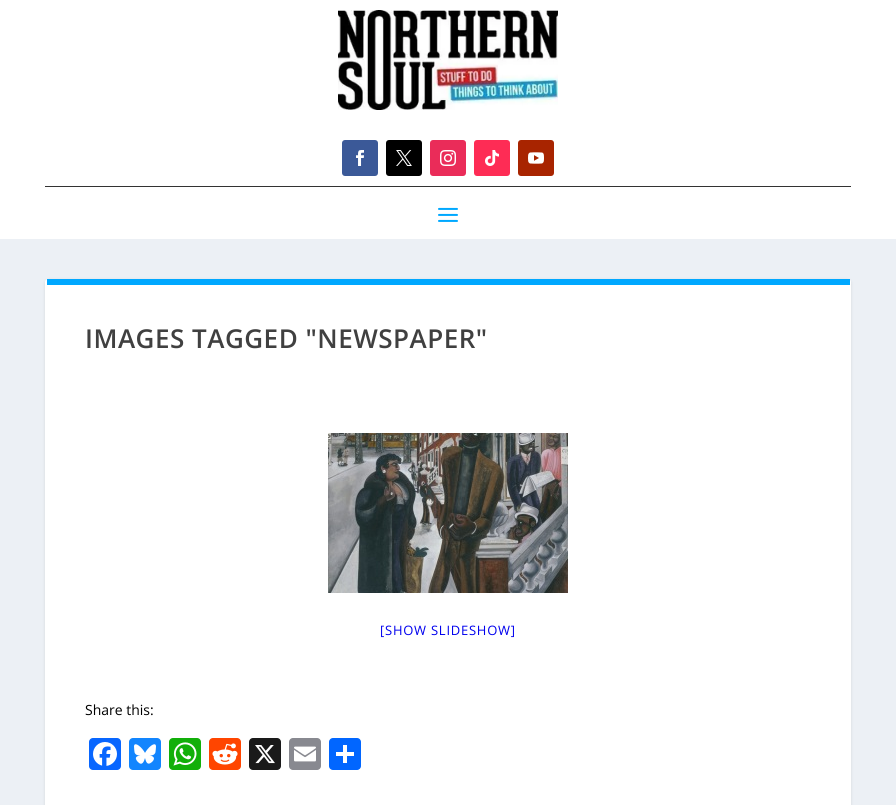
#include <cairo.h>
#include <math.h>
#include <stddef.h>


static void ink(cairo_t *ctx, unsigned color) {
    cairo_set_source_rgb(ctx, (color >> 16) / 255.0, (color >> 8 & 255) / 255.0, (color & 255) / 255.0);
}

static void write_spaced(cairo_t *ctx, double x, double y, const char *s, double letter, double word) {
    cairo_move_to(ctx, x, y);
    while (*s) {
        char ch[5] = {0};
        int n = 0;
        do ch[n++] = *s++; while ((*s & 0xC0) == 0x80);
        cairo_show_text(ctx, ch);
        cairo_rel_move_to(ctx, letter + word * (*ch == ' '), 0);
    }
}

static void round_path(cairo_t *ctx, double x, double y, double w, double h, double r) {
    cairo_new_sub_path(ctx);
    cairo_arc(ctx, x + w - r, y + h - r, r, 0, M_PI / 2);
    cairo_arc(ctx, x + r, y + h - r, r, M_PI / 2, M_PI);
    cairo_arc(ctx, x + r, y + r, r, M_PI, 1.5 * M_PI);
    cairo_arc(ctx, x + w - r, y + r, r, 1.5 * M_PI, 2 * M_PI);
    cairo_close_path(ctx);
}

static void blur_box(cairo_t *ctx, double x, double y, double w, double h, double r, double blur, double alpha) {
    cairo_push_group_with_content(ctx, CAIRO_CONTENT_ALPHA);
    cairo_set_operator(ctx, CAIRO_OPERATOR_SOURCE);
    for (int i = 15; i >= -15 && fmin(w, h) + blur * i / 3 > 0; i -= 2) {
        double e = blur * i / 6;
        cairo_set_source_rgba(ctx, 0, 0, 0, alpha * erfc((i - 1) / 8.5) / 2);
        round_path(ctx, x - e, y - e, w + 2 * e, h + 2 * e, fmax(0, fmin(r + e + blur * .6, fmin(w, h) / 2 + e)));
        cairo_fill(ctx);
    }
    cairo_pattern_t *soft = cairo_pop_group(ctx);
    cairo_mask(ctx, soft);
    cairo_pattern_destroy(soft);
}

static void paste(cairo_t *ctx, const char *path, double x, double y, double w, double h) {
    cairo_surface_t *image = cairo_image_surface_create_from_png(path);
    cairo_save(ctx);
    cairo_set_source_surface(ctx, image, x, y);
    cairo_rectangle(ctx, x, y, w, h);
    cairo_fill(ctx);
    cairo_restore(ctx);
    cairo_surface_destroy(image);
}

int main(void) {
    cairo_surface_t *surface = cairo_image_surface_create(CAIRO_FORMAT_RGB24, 896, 805);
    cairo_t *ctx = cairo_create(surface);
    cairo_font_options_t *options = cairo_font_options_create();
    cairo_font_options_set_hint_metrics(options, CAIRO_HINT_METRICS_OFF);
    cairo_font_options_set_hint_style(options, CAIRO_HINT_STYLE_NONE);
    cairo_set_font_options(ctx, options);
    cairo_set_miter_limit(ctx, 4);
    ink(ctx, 0xECF0F5);
    cairo_paint(ctx);
    ink(ctx, 0xFFFFFF);
    cairo_rectangle(ctx, 0, 0, 896, 239);
    cairo_fill(ctx);
    ink(ctx, 0x333333);
    cairo_rectangle(ctx, 45, 186, 806, 1);
    cairo_fill(ctx);
    paste(ctx, "media/1.png", 338, 10, 220, 100);
    ink(ctx, 0x3B5998);
    round_path(ctx, 342, 140, 36, 36, 3);
    cairo_fill(ctx);
    paste(ctx, "media/2.png", 356, 150, 8, 16);
    ink(ctx, 0x000000);
    round_path(ctx, 386, 140, 36, 36, 3);
    cairo_fill(ctx);
    paste(ctx, "media/3.png", 396, 150, 16, 16);
    ink(ctx, 0xEA2C59);
    round_path(ctx, 430, 140, 36, 36, 3);
    cairo_fill(ctx);
    paste(ctx, "media/4.png", 440, 150, 16, 16);
    ink(ctx, 0xFE2C55);
    round_path(ctx, 474, 140, 36, 36, 3);
    cairo_fill(ctx);
    paste(ctx, "media/5.png", 485, 150, 14, 16);
    ink(ctx, 0xA82400);
    round_path(ctx, 518, 140, 36, 36, 3);
    cairo_fill(ctx);
    paste(ctx, "media/6.png", 528, 152, 16, 12);
    paste(ctx, "media/7.png", 438, 207, 20, 15);
    ink(ctx, 0x000000);
    blur_box(ctx, 45, 280, 806, 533, 3, 1.5, 0.1);
    ink(ctx, 0xFFFFFF);
    round_path(ctx, 45, 279, 806, 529, 3);
    cairo_fill(ctx);
    ink(ctx, 0x00A8FF);
    cairo_rectangle(ctx, 47, 279, 803, 6);
    cairo_fill(ctx);
    cairo_select_font_face(ctx, "Open Sans SemiBold", CAIRO_FONT_SLANT_NORMAL, CAIRO_FONT_WEIGHT_NORMAL);
    cairo_set_font_size(ctx, 26);
    ink(ctx, 0x404040);
    write_spaced(ctx, 85, 348, "IMAGES TAGGED \"NEWSPAPER\"", 0.5, 0);
    paste(ctx, "media/8.png", 328, 433, 240, 160);
    cairo_select_font_face(ctx, "Open Sans", CAIRO_FONT_SLANT_NORMAL, CAIRO_FONT_WEIGHT_NORMAL);
    cairo_set_font_size(ctx, 13);
    ink(ctx, 0x0000EE);
    write_spaced(ctx, 380, 635, "[SHOW SLIDESHOW]", 0.75, 0);
    cairo_set_font_size(ctx, 14);
    ink(ctx, 0x000000);
    cairo_move_to(ctx, 85, 715);
    cairo_show_text(ctx, "Share this:");
    ink(ctx, 0x0866FF);
    round_path(ctx, 89, 738, 32, 32, 4);
    cairo_fill(ctx);
    paste(ctx, "media/9.png", 93, 742, 24, 24);
    ink(ctx, 0x1285FE);
    round_path(ctx, 129, 738, 32, 32, 4);
    cairo_fill(ctx);
    paste(ctx, "media/10.png", 134, 744, 22, 20);
    ink(ctx, 0x12AF0A);
    round_path(ctx, 169, 738, 32, 32, 4);
    cairo_fill(ctx);
    paste(ctx, "media/11.png", 173, 742, 24, 24);
    ink(ctx, 0xFF4500);
    round_path(ctx, 209, 738, 32, 32, 4);
    cairo_fill(ctx);
    paste(ctx, "media/12.png", 212, 743, 26, 22);
    ink(ctx, 0x1A1A1A);
    round_path(ctx, 249, 738, 32, 32, 4);
    cairo_fill(ctx);
    paste(ctx, "media/13.png", 255, 745, 20, 19);
    ink(ctx, 0x888990);
    round_path(ctx, 289, 738, 32, 32, 4);
    cairo_fill(ctx);
    paste(ctx, "media/14.png", 294, 746, 22, 16);
    ink(ctx, 0x0166FF);
    round_path(ctx, 329, 738, 32, 32, 4);
    cairo_fill(ctx);
    ink(ctx, 0xFFFFFF);
    cairo_rectangle(ctx, 343, 745, 4, 18);
    cairo_fill(ctx);
    cairo_rectangle(ctx, 336, 752, 18, 4);
    cairo_fill(ctx);
    cairo_surface_write_to_png(surface, "image.png");
    cairo_font_options_destroy(options);
    cairo_destroy(ctx);
    cairo_surface_destroy(surface);
    return 0;
}
